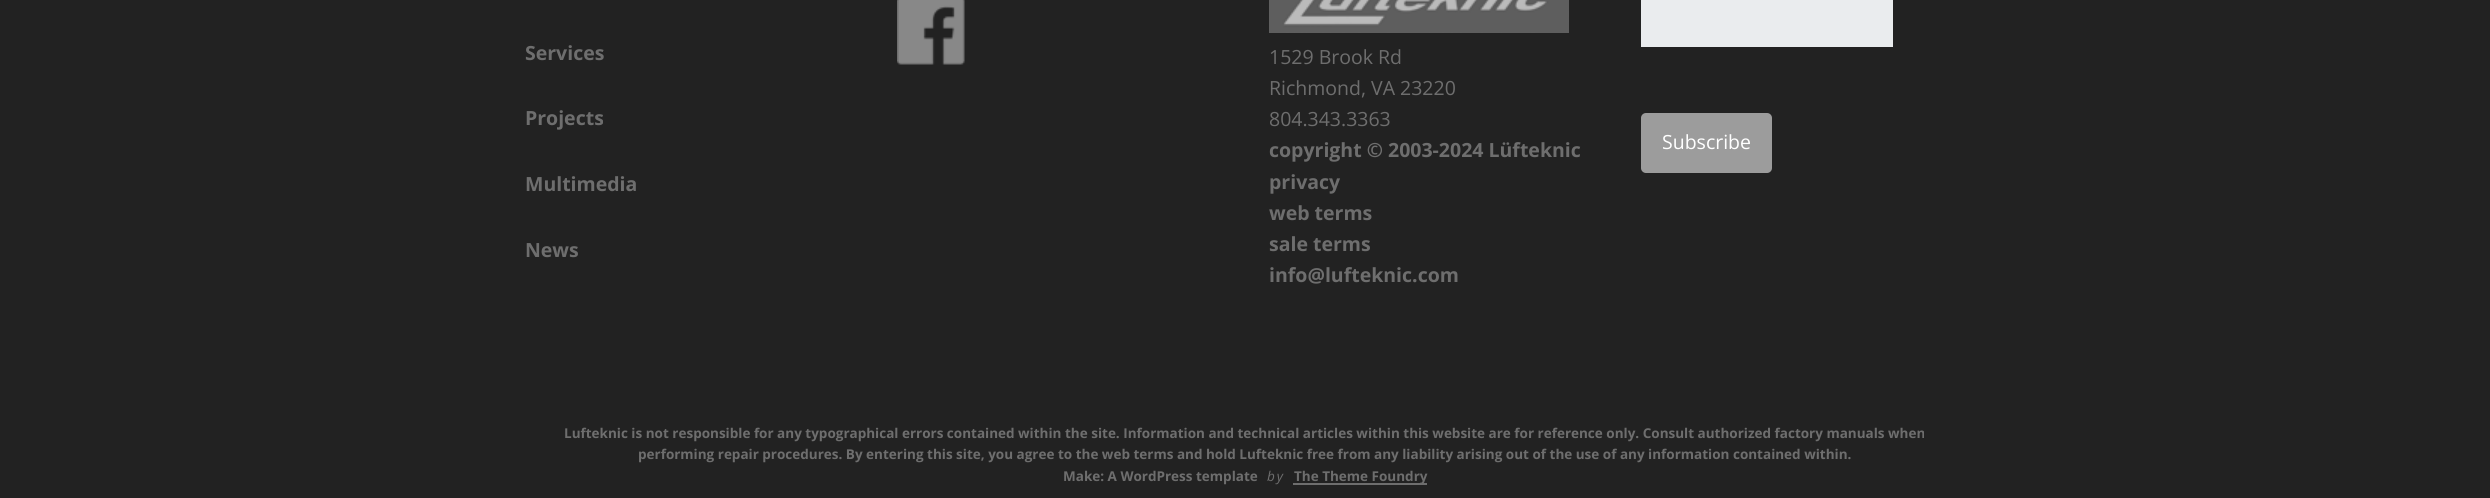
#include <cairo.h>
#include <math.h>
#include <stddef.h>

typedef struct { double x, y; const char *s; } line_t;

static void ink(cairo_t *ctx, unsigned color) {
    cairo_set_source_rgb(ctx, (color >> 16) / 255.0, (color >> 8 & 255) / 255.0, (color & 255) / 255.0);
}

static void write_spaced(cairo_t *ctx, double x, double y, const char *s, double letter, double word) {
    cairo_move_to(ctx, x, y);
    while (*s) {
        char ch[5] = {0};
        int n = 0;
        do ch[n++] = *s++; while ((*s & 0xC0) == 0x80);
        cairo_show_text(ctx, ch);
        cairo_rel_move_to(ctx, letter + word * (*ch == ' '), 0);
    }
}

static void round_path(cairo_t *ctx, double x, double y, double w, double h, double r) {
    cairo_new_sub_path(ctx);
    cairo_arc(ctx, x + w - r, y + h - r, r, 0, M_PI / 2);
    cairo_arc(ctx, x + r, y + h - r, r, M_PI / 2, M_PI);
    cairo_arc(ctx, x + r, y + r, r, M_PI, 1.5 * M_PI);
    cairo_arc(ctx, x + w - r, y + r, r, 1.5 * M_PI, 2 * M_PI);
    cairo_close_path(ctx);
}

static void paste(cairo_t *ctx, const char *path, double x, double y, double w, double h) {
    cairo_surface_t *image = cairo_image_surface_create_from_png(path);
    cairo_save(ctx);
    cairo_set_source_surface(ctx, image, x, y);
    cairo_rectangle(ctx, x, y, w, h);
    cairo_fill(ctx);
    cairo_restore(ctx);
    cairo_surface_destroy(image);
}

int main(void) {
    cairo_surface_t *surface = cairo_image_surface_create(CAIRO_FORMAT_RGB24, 2490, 498);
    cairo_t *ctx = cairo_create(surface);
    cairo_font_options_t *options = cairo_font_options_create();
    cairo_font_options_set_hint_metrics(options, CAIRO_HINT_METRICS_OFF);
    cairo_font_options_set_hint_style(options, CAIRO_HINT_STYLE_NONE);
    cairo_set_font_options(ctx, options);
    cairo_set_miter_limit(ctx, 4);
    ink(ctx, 0x222222);
    cairo_paint(ctx);
    paste(ctx, "media/1.png", 897, 0, 68, 65);
    cairo_select_font_face(ctx, "Open Sans", CAIRO_FONT_SLANT_NORMAL, CAIRO_FONT_WEIGHT_BOLD);
    cairo_set_font_size(ctx, 19.5);
    ink(ctx, 0x6E6E6E);
    {
        static const line_t items[] = {
            {525, 60, "Services"},
            {525, 125, "Projects"},
            {525, 191, "Multimedia"},
            {525, 257, "News"},
        };
        for (size_t i = 0; i < sizeof items / sizeof *items; i++) {
            cairo_move_to(ctx, items[i].x, items[i].y);
            cairo_show_text(ctx, items[i].s);
        }
    }
    paste(ctx, "media/2.png", 1269, 0, 300, 33);
    cairo_select_font_face(ctx, "Open Sans", CAIRO_FONT_SLANT_NORMAL, CAIRO_FONT_WEIGHT_NORMAL);
    {
        static const line_t items[] = {
            {1269, 64, "1529 Brook Rd"},
            {1269, 95, "Richmond, VA 23220"},
            {1269, 126, "804.343.3363"},
        };
        for (size_t i = 0; i < sizeof items / sizeof *items; i++) {
            cairo_move_to(ctx, items[i].x, items[i].y);
            cairo_show_text(ctx, items[i].s);
        }
    }
    cairo_select_font_face(ctx, "Open Sans", CAIRO_FONT_SLANT_NORMAL, CAIRO_FONT_WEIGHT_BOLD);
    {
        static const line_t items[] = {
            {1269, 157, "copyright © 2003-2024 Lüfteknic"},
            {1269, 189, "privacy"},
            {1269, 220, "web terms"},
            {1269, 251, "sale terms"},
            {1269, 282, "info@lufteknic.com"},
        };
        for (size_t i = 0; i < sizeof items / sizeof *items; i++) {
            cairo_move_to(ctx, items[i].x, items[i].y);
            cairo_show_text(ctx, items[i].s);
        }
    }
    ink(ctx, 0xEAECEE);
    cairo_rectangle(ctx, 1641, 0, 252, 47);
    cairo_fill(ctx);
    ink(ctx, 0x9C9C9C);
    round_path(ctx, 1641, 113, 131, 60, 5);
    cairo_fill(ctx);
    cairo_select_font_face(ctx, "Open Sans", CAIRO_FONT_SLANT_NORMAL, CAIRO_FONT_WEIGHT_NORMAL);
    ink(ctx, 0xFFFFFF);
    cairo_move_to(ctx, 1662, 149);
    cairo_show_text(ctx, "Subscribe");
    cairo_select_font_face(ctx, "Open Sans", CAIRO_FONT_SLANT_NORMAL, CAIRO_FONT_WEIGHT_BOLD);
    cairo_set_font_size(ctx, 13.5);
    ink(ctx, 0x6E6E6E);
    {
        static const line_t items[] = {
            {564, 438, "Lufteknic is not responsible for any typographical errors contained within the site. Information and technical articles within this website are for reference only. Consult authorized factory manuals when"},
            {638, 459, "performing repair procedures. By entering this site, you agree to the web terms and hold Lufteknic free from any liability arising out of the use of any information contained within."},
            {1063, 481, "Make: A WordPress template"},
        };
        for (size_t i = 0; i < sizeof items / sizeof *items; i++) {
            cairo_move_to(ctx, items[i].x, items[i].y);
            cairo_show_text(ctx, items[i].s);
        }
    }
    cairo_select_font_face(ctx, "Open Sans", CAIRO_FONT_SLANT_ITALIC, CAIRO_FONT_WEIGHT_NORMAL);
    write_spaced(ctx, 1267, 481, "by", 2, 0);
    cairo_rectangle(ctx, 1293, 483, 134, 2);
    cairo_fill(ctx);
    cairo_select_font_face(ctx, "Open Sans", CAIRO_FONT_SLANT_NORMAL, CAIRO_FONT_WEIGHT_BOLD);
    cairo_move_to(ctx, 1294, 481);
    cairo_show_text(ctx, "The Theme Foundry");
    cairo_surface_write_to_png(surface, "image.png");
    cairo_font_options_destroy(options);
    cairo_destroy(ctx);
    cairo_surface_destroy(surface);
    return 0;
}
